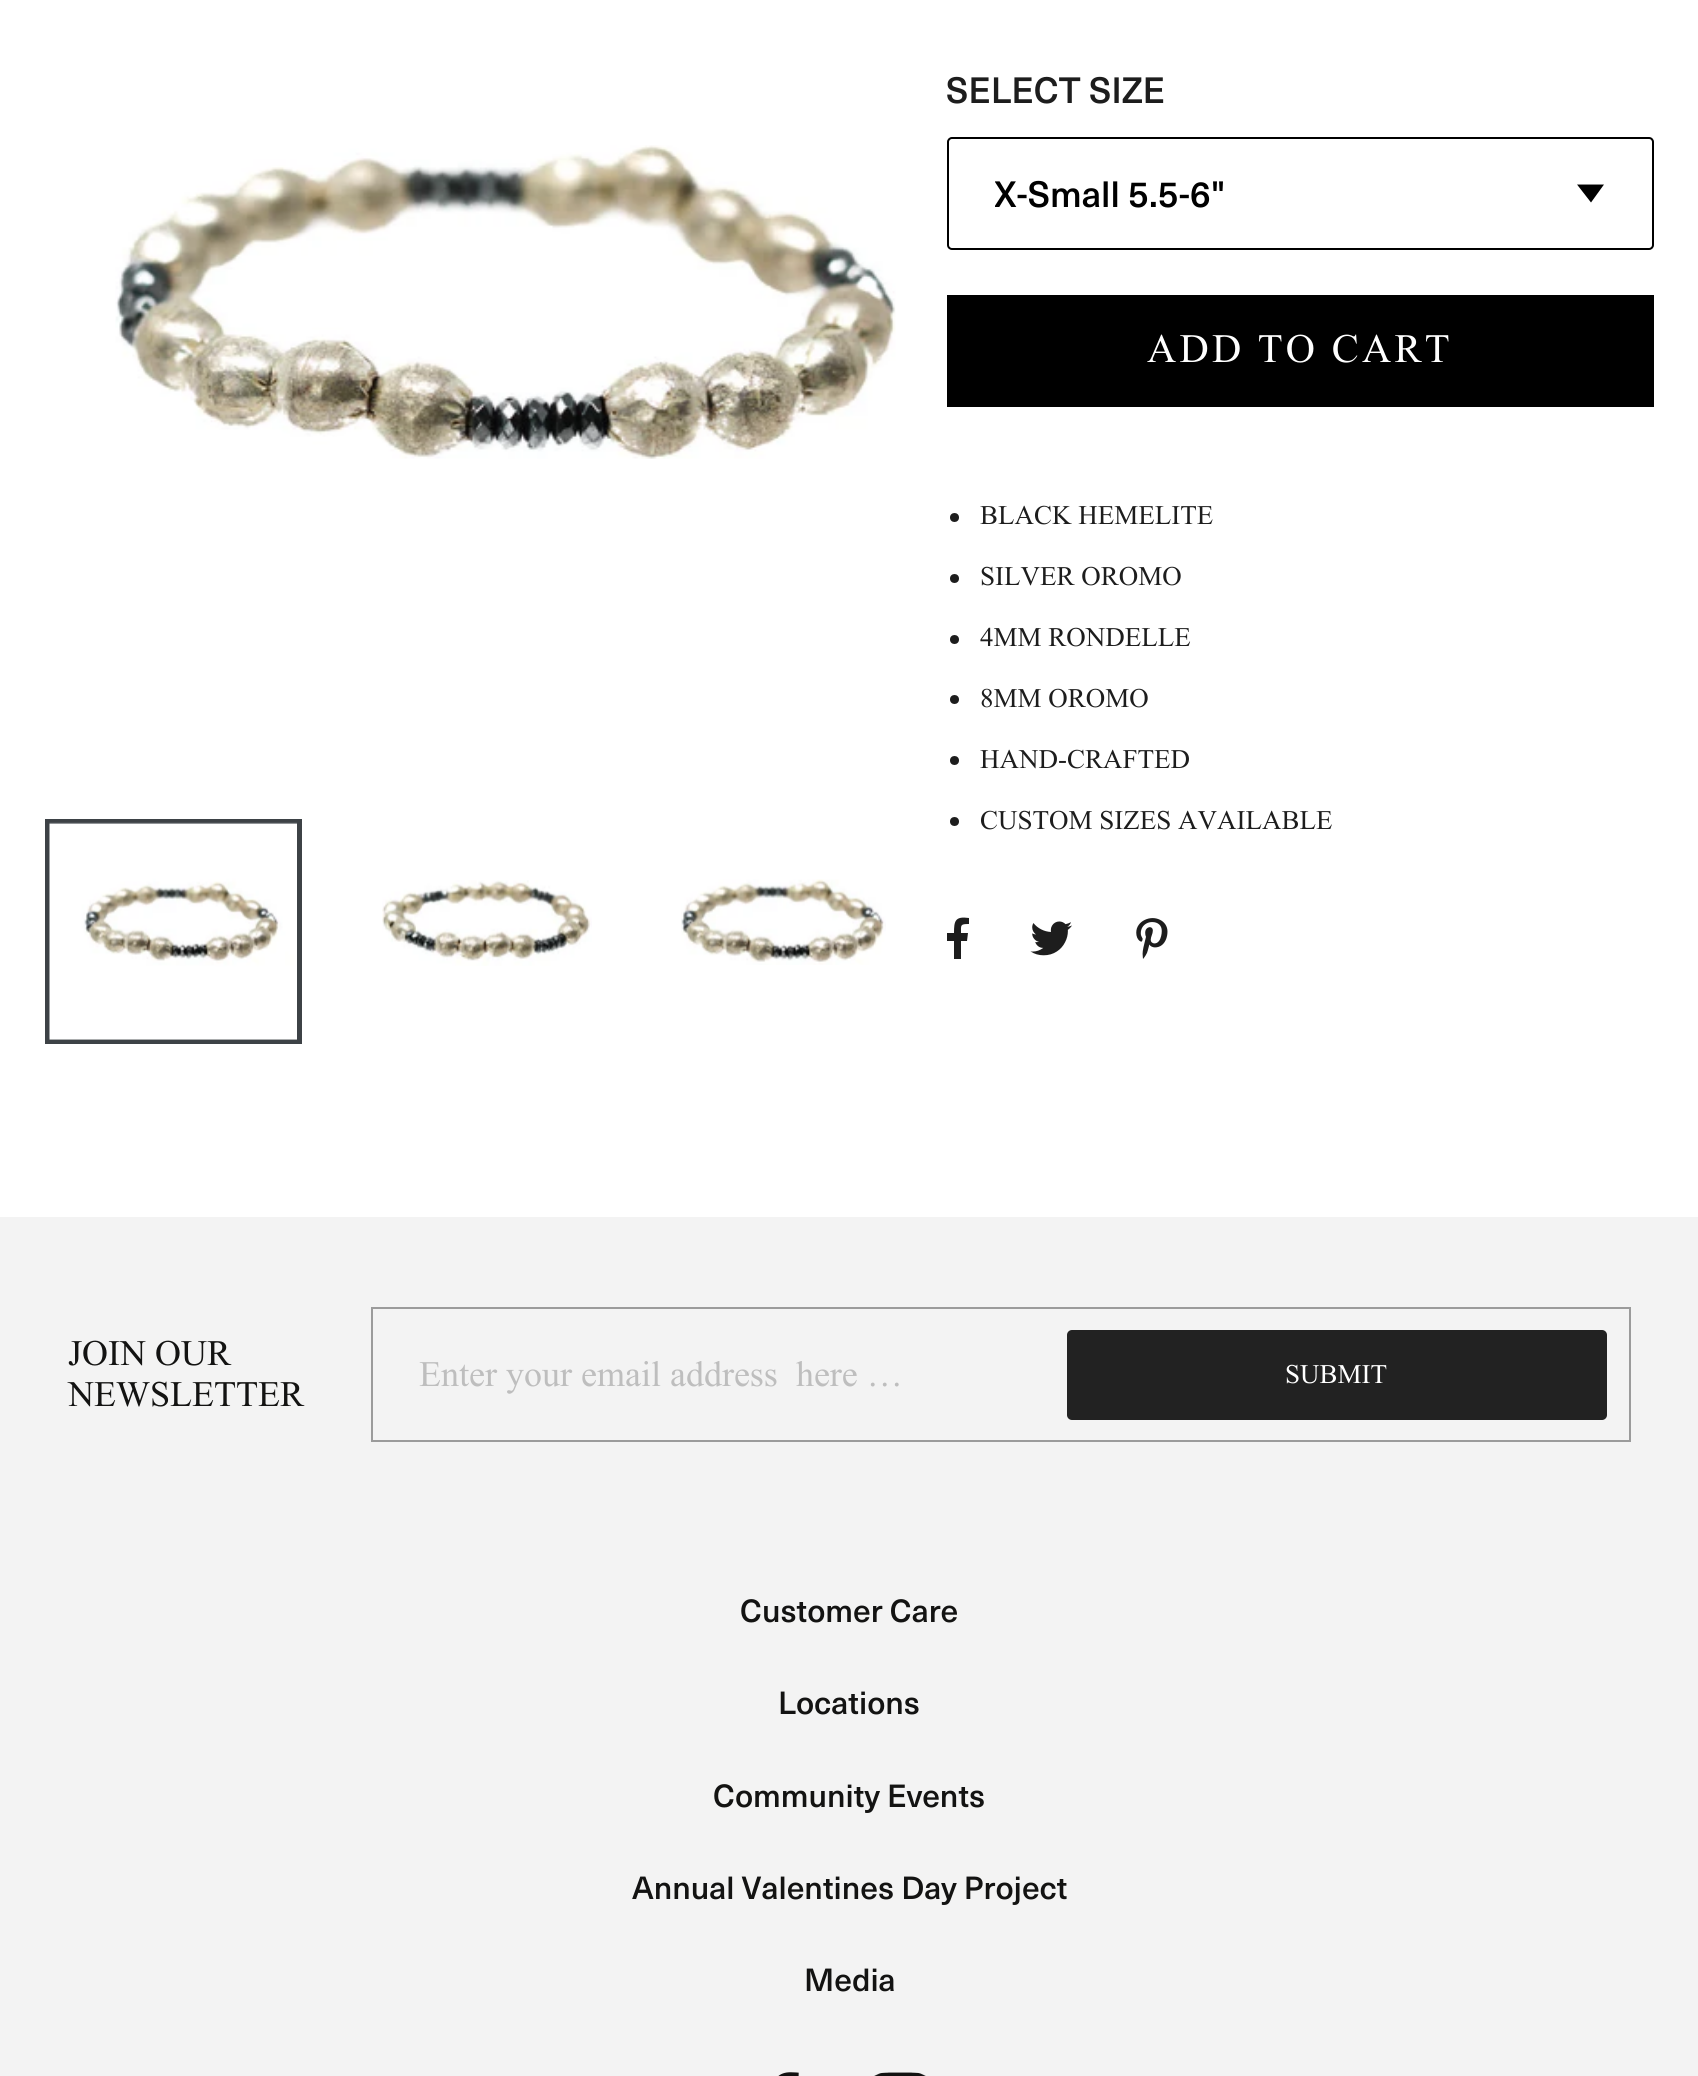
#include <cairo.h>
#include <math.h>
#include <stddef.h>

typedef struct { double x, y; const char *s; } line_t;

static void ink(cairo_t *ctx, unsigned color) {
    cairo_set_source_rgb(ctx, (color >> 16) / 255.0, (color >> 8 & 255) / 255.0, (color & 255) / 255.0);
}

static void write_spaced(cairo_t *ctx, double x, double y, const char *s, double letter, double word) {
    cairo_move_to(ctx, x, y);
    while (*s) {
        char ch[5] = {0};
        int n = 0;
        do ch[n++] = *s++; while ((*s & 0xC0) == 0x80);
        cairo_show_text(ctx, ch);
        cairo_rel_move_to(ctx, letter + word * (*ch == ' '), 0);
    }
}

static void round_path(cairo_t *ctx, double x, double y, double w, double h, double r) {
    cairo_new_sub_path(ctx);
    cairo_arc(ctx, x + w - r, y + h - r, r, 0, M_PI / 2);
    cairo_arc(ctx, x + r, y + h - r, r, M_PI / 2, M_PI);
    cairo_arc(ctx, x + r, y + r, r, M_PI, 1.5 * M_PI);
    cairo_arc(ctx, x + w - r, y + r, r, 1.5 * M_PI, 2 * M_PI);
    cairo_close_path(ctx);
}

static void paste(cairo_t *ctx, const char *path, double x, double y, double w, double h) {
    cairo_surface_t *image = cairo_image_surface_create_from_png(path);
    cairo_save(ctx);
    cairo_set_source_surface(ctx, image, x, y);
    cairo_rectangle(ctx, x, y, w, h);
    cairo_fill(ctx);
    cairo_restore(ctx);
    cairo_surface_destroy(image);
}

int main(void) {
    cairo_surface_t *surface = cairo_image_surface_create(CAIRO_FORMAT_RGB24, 1698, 2076);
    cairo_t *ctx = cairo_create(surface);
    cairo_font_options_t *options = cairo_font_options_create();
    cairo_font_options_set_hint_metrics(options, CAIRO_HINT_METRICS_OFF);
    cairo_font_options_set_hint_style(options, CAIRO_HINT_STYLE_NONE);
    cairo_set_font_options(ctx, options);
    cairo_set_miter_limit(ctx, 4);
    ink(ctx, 0xFFFFFF);
    cairo_paint(ctx);
    paste(ctx, "media/1.png", 115, 145, 781, 314);
    cairo_rectangle(ctx, 47.5, 821.5, 252, 220);
    ink(ctx, 0x3D4246);
    cairo_set_line_width(ctx, 5);
    cairo_stroke(ctx);
    paste(ctx, "media/2.png", 49, 822, 248, 218);
    paste(ctx, "media/3.png", 382, 880, 210, 86);
    paste(ctx, "media/4.png", 681, 879, 205, 86);
    cairo_select_font_face(ctx, "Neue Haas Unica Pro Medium", CAIRO_FONT_SLANT_NORMAL, CAIRO_FONT_WEIGHT_NORMAL);
    cairo_set_font_size(ctx, 36);
    ink(ctx, 0x1D1D1D);
    cairo_move_to(ctx, 946, 103);
    cairo_show_text(ctx, "SELECT SIZE");
    round_path(ctx, 948, 138, 705, 111, 4);
    ink(ctx, 0x000000);
    cairo_set_line_width(ctx, 2);
    cairo_stroke(ctx);
    cairo_save(ctx);
    cairo_rectangle(ctx, 995, 171, 567, 43);
    cairo_clip(ctx);
    cairo_move_to(ctx, 994, 207);
    cairo_show_text(ctx, "X-Small 5.5-6\"");
    cairo_restore(ctx);
    cairo_new_path(ctx);
    cairo_move_to(ctx, 1577, 184.5);
    cairo_line_to(ctx, 1604, 184.5);
    cairo_line_to(ctx, 1591, 202.5);
    cairo_close_path(ctx);
    cairo_fill(ctx);
    cairo_rectangle(ctx, 947, 295, 707, 112);
    cairo_fill(ctx);
    cairo_select_font_face(ctx, "Times New Roman", CAIRO_FONT_SLANT_NORMAL, CAIRO_FONT_WEIGHT_NORMAL);
    cairo_set_font_size(ctx, 40.5);
    ink(ctx, 0xFFFFFF);
    write_spaced(ctx, 1147, 362, "ADD TO CART", 3.25, 0);
    ink(ctx, 0x1D1D1D);
    cairo_new_path(ctx);
    cairo_arc(ctx, 954.5, 517.5, 4.5, 0, 2 * M_PI);
    cairo_fill(ctx);
    cairo_set_font_size(ctx, 27);
    cairo_move_to(ctx, 980, 524);
    cairo_show_text(ctx, "BLACK HEMELITE");
    cairo_new_path(ctx);
    cairo_arc(ctx, 954.5, 578.5, 4.5, 0, 2 * M_PI);
    cairo_fill(ctx);
    cairo_move_to(ctx, 980, 585);
    cairo_show_text(ctx, "SILVER OROMO");
    cairo_new_path(ctx);
    cairo_arc(ctx, 954.5, 639.5, 4.5, 0, 2 * M_PI);
    cairo_fill(ctx);
    cairo_move_to(ctx, 980, 646);
    cairo_show_text(ctx, "4MM RONDELLE");
    cairo_new_path(ctx);
    cairo_arc(ctx, 954.5, 699.5, 4.5, 0, 2 * M_PI);
    cairo_fill(ctx);
    cairo_move_to(ctx, 980, 707);
    cairo_show_text(ctx, "8MM OROMO");
    cairo_new_path(ctx);
    cairo_arc(ctx, 954.5, 760.5, 4.5, 0, 2 * M_PI);
    cairo_fill(ctx);
    cairo_move_to(ctx, 980, 768);
    cairo_show_text(ctx, "HAND-CRAFTED");
    cairo_new_path(ctx);
    cairo_arc(ctx, 954.5, 821.5, 4.5, 0, 2 * M_PI);
    cairo_fill(ctx);
    cairo_move_to(ctx, 980, 829);
    cairo_show_text(ctx, "CUSTOM SIZES AVAILABLE");
    cairo_new_path(ctx);
    cairo_move_to(ctx, 954, 959);
    cairo_line_to(ctx, 954, 941);
    cairo_line_to(ctx, 947, 941);
    cairo_line_to(ctx, 947, 933);
    cairo_line_to(ctx, 954, 933);
    cairo_curve_to(ctx, 954, 921, 955, 916, 969, 918);
    cairo_line_to(ctx, 969, 924);
    cairo_curve_to(ctx, 960, 924, 961, 925, 961, 933);
    cairo_line_to(ctx, 968, 933);
    cairo_line_to(ctx, 967, 941);
    cairo_line_to(ctx, 961, 941);
    cairo_line_to(ctx, 961, 959);
    cairo_close_path(ctx);
    cairo_fill(ctx);
    paste(ctx, "media/5.png", 1030, 921, 42, 35);
    paste(ctx, "media/6.png", 1136, 918, 32, 41);
    ink(ctx, 0xF3F3F3);
    cairo_rectangle(ctx, 0, 1217, 1698, 859);
    cairo_fill(ctx);
    cairo_set_font_size(ctx, 36);
    ink(ctx, 0x131312);
    cairo_move_to(ctx, 68, 1365);
    cairo_show_text(ctx, "JOIN OUR");
    cairo_move_to(ctx, 68, 1406);
    cairo_show_text(ctx, "NEWSLETTER");
    cairo_rectangle(ctx, 372, 1308, 1258, 133);
    ink(ctx, 0x9B9B9B);
    cairo_stroke(ctx);
    ink(ctx, 0xBEBEBE);
    cairo_move_to(ctx, 419, 1386);
    cairo_show_text(ctx, "Enter your email address  here …");
    ink(ctx, 0x222222);
    round_path(ctx, 1067, 1330, 540, 90, 5);
    cairo_fill(ctx);
    cairo_set_font_size(ctx, 27);
    ink(ctx, 0xFFFFFF);
    cairo_move_to(ctx, 1285, 1383);
    cairo_show_text(ctx, "SUBMIT");
    cairo_select_font_face(ctx, "Neue Haas Unica Pro Medium", CAIRO_FONT_SLANT_NORMAL, CAIRO_FONT_WEIGHT_NORMAL);
    cairo_set_font_size(ctx, 31.5);
    ink(ctx, 0x131312);
    {
        static const line_t items[] = {
            {740, 1622, "Customer Care"},
            {778, 1714, "Locations"},
            {713, 1807, "Community Events"},
            {632, 1899, "Annual Valentines Day Project"},
            {804, 1991, "Media"},
        };
        for (size_t i = 0; i < sizeof items / sizeof *items; i++) {
            cairo_move_to(ctx, items[i].x, items[i].y);
            cairo_show_text(ctx, items[i].s);
        }
    }
    paste(ctx, "media/7.png", 778, 2072, 21, 4);
    paste(ctx, "media/8.png", 874, 2072, 52, 4);
    cairo_surface_write_to_png(surface, "image.png");
    cairo_font_options_destroy(options);
    cairo_destroy(ctx);
    cairo_surface_destroy(surface);
    return 0;
}
